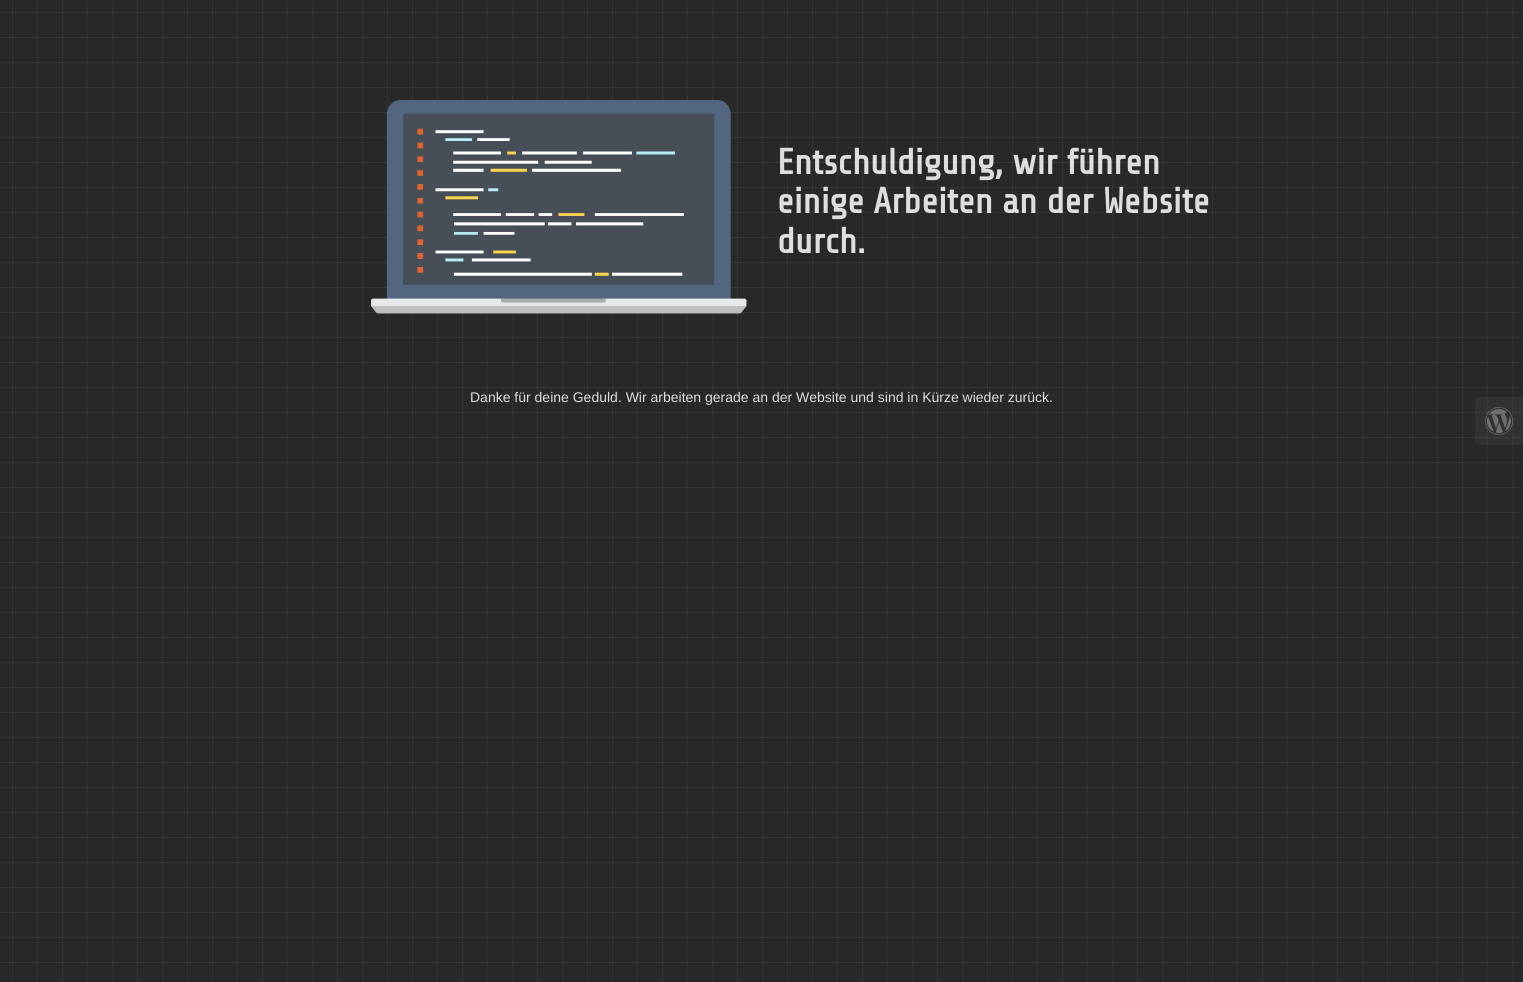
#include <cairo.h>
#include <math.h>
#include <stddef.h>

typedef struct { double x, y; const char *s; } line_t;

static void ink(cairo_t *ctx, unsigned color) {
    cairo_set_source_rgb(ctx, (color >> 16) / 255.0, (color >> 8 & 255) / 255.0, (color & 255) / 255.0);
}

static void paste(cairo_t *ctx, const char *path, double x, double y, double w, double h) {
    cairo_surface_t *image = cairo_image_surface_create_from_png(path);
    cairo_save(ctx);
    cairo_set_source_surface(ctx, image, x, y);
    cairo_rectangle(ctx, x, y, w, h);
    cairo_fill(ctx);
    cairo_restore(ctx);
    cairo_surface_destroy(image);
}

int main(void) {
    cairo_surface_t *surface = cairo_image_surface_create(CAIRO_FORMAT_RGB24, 1523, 982);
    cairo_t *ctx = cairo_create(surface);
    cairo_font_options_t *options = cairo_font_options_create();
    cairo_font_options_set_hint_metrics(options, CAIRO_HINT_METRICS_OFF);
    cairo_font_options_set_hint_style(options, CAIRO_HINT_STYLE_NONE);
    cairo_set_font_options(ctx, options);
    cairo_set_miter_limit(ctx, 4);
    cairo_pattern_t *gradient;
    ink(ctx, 0x282828);
    cairo_paint(ctx);
    paste(ctx, "media/1.png", 12, 0, 1501, 982);
    gradient = cairo_pattern_create_linear(25, 50, 25, 0);
    cairo_pattern_add_color_stop_rgba(gradient, 0.24, 1, 1, 1, 0);
    cairo_pattern_add_color_stop_rgba(gradient, 0.25, 1, 1, 1, 0.05);
    cairo_pattern_add_color_stop_rgba(gradient, 0.26, 1, 1, 1, 0.05);
    cairo_pattern_add_color_stop_rgba(gradient, 0.27, 1, 1, 1, 0);
    cairo_pattern_add_color_stop_rgba(gradient, 0.74, 1, 1, 1, 0);
    cairo_pattern_add_color_stop_rgba(gradient, 0.75, 1, 1, 1, 0.05);
    cairo_pattern_add_color_stop_rgba(gradient, 0.76, 1, 1, 1, 0.05);
    cairo_pattern_add_color_stop_rgba(gradient, 0.77, 1, 1, 1, 0);
    cairo_pattern_add_color_stop_rgba(gradient, 1, 0, 0, 0, 0);
    cairo_set_source(ctx, gradient);
    cairo_pattern_destroy(gradient);
    cairo_rectangle(ctx, 0, 12, 1523, 26);
    cairo_fill(ctx);
    gradient = cairo_pattern_create_linear(25, 100, 25, 50);
    cairo_pattern_add_color_stop_rgba(gradient, 0.24, 1, 1, 1, 0);
    cairo_pattern_add_color_stop_rgba(gradient, 0.25, 1, 1, 1, 0.05);
    cairo_pattern_add_color_stop_rgba(gradient, 0.26, 1, 1, 1, 0.05);
    cairo_pattern_add_color_stop_rgba(gradient, 0.27, 1, 1, 1, 0);
    cairo_pattern_add_color_stop_rgba(gradient, 0.74, 1, 1, 1, 0);
    cairo_pattern_add_color_stop_rgba(gradient, 0.75, 1, 1, 1, 0.05);
    cairo_pattern_add_color_stop_rgba(gradient, 0.76, 1, 1, 1, 0.05);
    cairo_pattern_add_color_stop_rgba(gradient, 0.77, 1, 1, 1, 0);
    cairo_pattern_add_color_stop_rgba(gradient, 1, 0, 0, 0, 0);
    cairo_set_source(ctx, gradient);
    cairo_pattern_destroy(gradient);
    cairo_rectangle(ctx, 0, 62, 1523, 26);
    cairo_fill(ctx);
    gradient = cairo_pattern_create_linear(25, 150, 25, 100);
    cairo_pattern_add_color_stop_rgba(gradient, 0.24, 1, 1, 1, 0);
    cairo_pattern_add_color_stop_rgba(gradient, 0.25, 1, 1, 1, 0.05);
    cairo_pattern_add_color_stop_rgba(gradient, 0.26, 1, 1, 1, 0.05);
    cairo_pattern_add_color_stop_rgba(gradient, 0.27, 1, 1, 1, 0);
    cairo_pattern_add_color_stop_rgba(gradient, 0.74, 1, 1, 1, 0);
    cairo_pattern_add_color_stop_rgba(gradient, 0.75, 1, 1, 1, 0.05);
    cairo_pattern_add_color_stop_rgba(gradient, 0.76, 1, 1, 1, 0.05);
    cairo_pattern_add_color_stop_rgba(gradient, 0.77, 1, 1, 1, 0);
    cairo_pattern_add_color_stop_rgba(gradient, 1, 0, 0, 0, 0);
    cairo_set_source(ctx, gradient);
    cairo_pattern_destroy(gradient);
    cairo_rectangle(ctx, 0, 112, 1523, 26);
    cairo_fill(ctx);
    gradient = cairo_pattern_create_linear(25, 200, 25, 150);
    cairo_pattern_add_color_stop_rgba(gradient, 0.24, 1, 1, 1, 0);
    cairo_pattern_add_color_stop_rgba(gradient, 0.25, 1, 1, 1, 0.05);
    cairo_pattern_add_color_stop_rgba(gradient, 0.26, 1, 1, 1, 0.05);
    cairo_pattern_add_color_stop_rgba(gradient, 0.27, 1, 1, 1, 0);
    cairo_pattern_add_color_stop_rgba(gradient, 0.74, 1, 1, 1, 0);
    cairo_pattern_add_color_stop_rgba(gradient, 0.75, 1, 1, 1, 0.05);
    cairo_pattern_add_color_stop_rgba(gradient, 0.76, 1, 1, 1, 0.05);
    cairo_pattern_add_color_stop_rgba(gradient, 0.77, 1, 1, 1, 0);
    cairo_pattern_add_color_stop_rgba(gradient, 1, 0, 0, 0, 0);
    cairo_set_source(ctx, gradient);
    cairo_pattern_destroy(gradient);
    cairo_rectangle(ctx, 0, 162, 1523, 26);
    cairo_fill(ctx);
    gradient = cairo_pattern_create_linear(25, 250, 25, 200);
    cairo_pattern_add_color_stop_rgba(gradient, 0.24, 1, 1, 1, 0);
    cairo_pattern_add_color_stop_rgba(gradient, 0.25, 1, 1, 1, 0.05);
    cairo_pattern_add_color_stop_rgba(gradient, 0.26, 1, 1, 1, 0.05);
    cairo_pattern_add_color_stop_rgba(gradient, 0.27, 1, 1, 1, 0);
    cairo_pattern_add_color_stop_rgba(gradient, 0.74, 1, 1, 1, 0);
    cairo_pattern_add_color_stop_rgba(gradient, 0.75, 1, 1, 1, 0.05);
    cairo_pattern_add_color_stop_rgba(gradient, 0.76, 1, 1, 1, 0.05);
    cairo_pattern_add_color_stop_rgba(gradient, 0.77, 1, 1, 1, 0);
    cairo_pattern_add_color_stop_rgba(gradient, 1, 0, 0, 0, 0);
    cairo_set_source(ctx, gradient);
    cairo_pattern_destroy(gradient);
    cairo_rectangle(ctx, 0, 212, 1523, 26);
    cairo_fill(ctx);
    gradient = cairo_pattern_create_linear(25, 300, 25, 250);
    cairo_pattern_add_color_stop_rgba(gradient, 0.24, 1, 1, 1, 0);
    cairo_pattern_add_color_stop_rgba(gradient, 0.25, 1, 1, 1, 0.05);
    cairo_pattern_add_color_stop_rgba(gradient, 0.26, 1, 1, 1, 0.05);
    cairo_pattern_add_color_stop_rgba(gradient, 0.27, 1, 1, 1, 0);
    cairo_pattern_add_color_stop_rgba(gradient, 0.74, 1, 1, 1, 0);
    cairo_pattern_add_color_stop_rgba(gradient, 0.75, 1, 1, 1, 0.05);
    cairo_pattern_add_color_stop_rgba(gradient, 0.76, 1, 1, 1, 0.05);
    cairo_pattern_add_color_stop_rgba(gradient, 0.77, 1, 1, 1, 0);
    cairo_pattern_add_color_stop_rgba(gradient, 1, 0, 0, 0, 0);
    cairo_set_source(ctx, gradient);
    cairo_pattern_destroy(gradient);
    cairo_rectangle(ctx, 0, 262, 1523, 26);
    cairo_fill(ctx);
    gradient = cairo_pattern_create_linear(25, 350, 25, 300);
    cairo_pattern_add_color_stop_rgba(gradient, 0.24, 1, 1, 1, 0);
    cairo_pattern_add_color_stop_rgba(gradient, 0.25, 1, 1, 1, 0.05);
    cairo_pattern_add_color_stop_rgba(gradient, 0.26, 1, 1, 1, 0.05);
    cairo_pattern_add_color_stop_rgba(gradient, 0.27, 1, 1, 1, 0);
    cairo_pattern_add_color_stop_rgba(gradient, 0.74, 1, 1, 1, 0);
    cairo_pattern_add_color_stop_rgba(gradient, 0.75, 1, 1, 1, 0.05);
    cairo_pattern_add_color_stop_rgba(gradient, 0.76, 1, 1, 1, 0.05);
    cairo_pattern_add_color_stop_rgba(gradient, 0.77, 1, 1, 1, 0);
    cairo_pattern_add_color_stop_rgba(gradient, 1, 0, 0, 0, 0);
    cairo_set_source(ctx, gradient);
    cairo_pattern_destroy(gradient);
    cairo_rectangle(ctx, 0, 312, 1523, 26);
    cairo_fill(ctx);
    gradient = cairo_pattern_create_linear(25, 400, 25, 350);
    cairo_pattern_add_color_stop_rgba(gradient, 0.24, 1, 1, 1, 0);
    cairo_pattern_add_color_stop_rgba(gradient, 0.25, 1, 1, 1, 0.05);
    cairo_pattern_add_color_stop_rgba(gradient, 0.26, 1, 1, 1, 0.05);
    cairo_pattern_add_color_stop_rgba(gradient, 0.27, 1, 1, 1, 0);
    cairo_pattern_add_color_stop_rgba(gradient, 0.74, 1, 1, 1, 0);
    cairo_pattern_add_color_stop_rgba(gradient, 0.75, 1, 1, 1, 0.05);
    cairo_pattern_add_color_stop_rgba(gradient, 0.76, 1, 1, 1, 0.05);
    cairo_pattern_add_color_stop_rgba(gradient, 0.77, 1, 1, 1, 0);
    cairo_pattern_add_color_stop_rgba(gradient, 1, 0, 0, 0, 0);
    cairo_set_source(ctx, gradient);
    cairo_pattern_destroy(gradient);
    cairo_rectangle(ctx, 0, 362, 1523, 26);
    cairo_fill(ctx);
    gradient = cairo_pattern_create_linear(25, 450, 25, 400);
    cairo_pattern_add_color_stop_rgba(gradient, 0.24, 1, 1, 1, 0);
    cairo_pattern_add_color_stop_rgba(gradient, 0.25, 1, 1, 1, 0.05);
    cairo_pattern_add_color_stop_rgba(gradient, 0.26, 1, 1, 1, 0.05);
    cairo_pattern_add_color_stop_rgba(gradient, 0.27, 1, 1, 1, 0);
    cairo_pattern_add_color_stop_rgba(gradient, 0.74, 1, 1, 1, 0);
    cairo_pattern_add_color_stop_rgba(gradient, 0.75, 1, 1, 1, 0.05);
    cairo_pattern_add_color_stop_rgba(gradient, 0.76, 1, 1, 1, 0.05);
    cairo_pattern_add_color_stop_rgba(gradient, 0.77, 1, 1, 1, 0);
    cairo_pattern_add_color_stop_rgba(gradient, 1, 0, 0, 0, 0);
    cairo_set_source(ctx, gradient);
    cairo_pattern_destroy(gradient);
    cairo_rectangle(ctx, 0, 412, 1523, 26);
    cairo_fill(ctx);
    gradient = cairo_pattern_create_linear(25, 500, 25, 450);
    cairo_pattern_add_color_stop_rgba(gradient, 0.24, 1, 1, 1, 0);
    cairo_pattern_add_color_stop_rgba(gradient, 0.25, 1, 1, 1, 0.05);
    cairo_pattern_add_color_stop_rgba(gradient, 0.26, 1, 1, 1, 0.05);
    cairo_pattern_add_color_stop_rgba(gradient, 0.27, 1, 1, 1, 0);
    cairo_pattern_add_color_stop_rgba(gradient, 0.74, 1, 1, 1, 0);
    cairo_pattern_add_color_stop_rgba(gradient, 0.75, 1, 1, 1, 0.05);
    cairo_pattern_add_color_stop_rgba(gradient, 0.76, 1, 1, 1, 0.05);
    cairo_pattern_add_color_stop_rgba(gradient, 0.77, 1, 1, 1, 0);
    cairo_pattern_add_color_stop_rgba(gradient, 1, 0, 0, 0, 0);
    cairo_set_source(ctx, gradient);
    cairo_pattern_destroy(gradient);
    cairo_rectangle(ctx, 0, 462, 1523, 26);
    cairo_fill(ctx);
    gradient = cairo_pattern_create_linear(25, 550, 25, 500);
    cairo_pattern_add_color_stop_rgba(gradient, 0.24, 1, 1, 1, 0);
    cairo_pattern_add_color_stop_rgba(gradient, 0.25, 1, 1, 1, 0.05);
    cairo_pattern_add_color_stop_rgba(gradient, 0.26, 1, 1, 1, 0.05);
    cairo_pattern_add_color_stop_rgba(gradient, 0.27, 1, 1, 1, 0);
    cairo_pattern_add_color_stop_rgba(gradient, 0.74, 1, 1, 1, 0);
    cairo_pattern_add_color_stop_rgba(gradient, 0.75, 1, 1, 1, 0.05);
    cairo_pattern_add_color_stop_rgba(gradient, 0.76, 1, 1, 1, 0.05);
    cairo_pattern_add_color_stop_rgba(gradient, 0.77, 1, 1, 1, 0);
    cairo_pattern_add_color_stop_rgba(gradient, 1, 0, 0, 0, 0);
    cairo_set_source(ctx, gradient);
    cairo_pattern_destroy(gradient);
    cairo_rectangle(ctx, 0, 512, 1523, 26);
    cairo_fill(ctx);
    gradient = cairo_pattern_create_linear(25, 600, 25, 550);
    cairo_pattern_add_color_stop_rgba(gradient, 0.24, 1, 1, 1, 0);
    cairo_pattern_add_color_stop_rgba(gradient, 0.25, 1, 1, 1, 0.05);
    cairo_pattern_add_color_stop_rgba(gradient, 0.26, 1, 1, 1, 0.05);
    cairo_pattern_add_color_stop_rgba(gradient, 0.27, 1, 1, 1, 0);
    cairo_pattern_add_color_stop_rgba(gradient, 0.74, 1, 1, 1, 0);
    cairo_pattern_add_color_stop_rgba(gradient, 0.75, 1, 1, 1, 0.05);
    cairo_pattern_add_color_stop_rgba(gradient, 0.76, 1, 1, 1, 0.05);
    cairo_pattern_add_color_stop_rgba(gradient, 0.77, 1, 1, 1, 0);
    cairo_pattern_add_color_stop_rgba(gradient, 1, 0, 0, 0, 0);
    cairo_set_source(ctx, gradient);
    cairo_pattern_destroy(gradient);
    cairo_rectangle(ctx, 0, 562, 1523, 26);
    cairo_fill(ctx);
    gradient = cairo_pattern_create_linear(25, 650, 25, 600);
    cairo_pattern_add_color_stop_rgba(gradient, 0.24, 1, 1, 1, 0);
    cairo_pattern_add_color_stop_rgba(gradient, 0.25, 1, 1, 1, 0.05);
    cairo_pattern_add_color_stop_rgba(gradient, 0.26, 1, 1, 1, 0.05);
    cairo_pattern_add_color_stop_rgba(gradient, 0.27, 1, 1, 1, 0);
    cairo_pattern_add_color_stop_rgba(gradient, 0.74, 1, 1, 1, 0);
    cairo_pattern_add_color_stop_rgba(gradient, 0.75, 1, 1, 1, 0.05);
    cairo_pattern_add_color_stop_rgba(gradient, 0.76, 1, 1, 1, 0.05);
    cairo_pattern_add_color_stop_rgba(gradient, 0.77, 1, 1, 1, 0);
    cairo_pattern_add_color_stop_rgba(gradient, 1, 0, 0, 0, 0);
    cairo_set_source(ctx, gradient);
    cairo_pattern_destroy(gradient);
    cairo_rectangle(ctx, 0, 612, 1523, 26);
    cairo_fill(ctx);
    gradient = cairo_pattern_create_linear(25, 700, 25, 650);
    cairo_pattern_add_color_stop_rgba(gradient, 0.24, 1, 1, 1, 0);
    cairo_pattern_add_color_stop_rgba(gradient, 0.25, 1, 1, 1, 0.05);
    cairo_pattern_add_color_stop_rgba(gradient, 0.26, 1, 1, 1, 0.05);
    cairo_pattern_add_color_stop_rgba(gradient, 0.27, 1, 1, 1, 0);
    cairo_pattern_add_color_stop_rgba(gradient, 0.74, 1, 1, 1, 0);
    cairo_pattern_add_color_stop_rgba(gradient, 0.75, 1, 1, 1, 0.05);
    cairo_pattern_add_color_stop_rgba(gradient, 0.76, 1, 1, 1, 0.05);
    cairo_pattern_add_color_stop_rgba(gradient, 0.77, 1, 1, 1, 0);
    cairo_pattern_add_color_stop_rgba(gradient, 1, 0, 0, 0, 0);
    cairo_set_source(ctx, gradient);
    cairo_pattern_destroy(gradient);
    cairo_rectangle(ctx, 0, 662, 1523, 26);
    cairo_fill(ctx);
    gradient = cairo_pattern_create_linear(25, 750, 25, 700);
    cairo_pattern_add_color_stop_rgba(gradient, 0.24, 1, 1, 1, 0);
    cairo_pattern_add_color_stop_rgba(gradient, 0.25, 1, 1, 1, 0.05);
    cairo_pattern_add_color_stop_rgba(gradient, 0.26, 1, 1, 1, 0.05);
    cairo_pattern_add_color_stop_rgba(gradient, 0.27, 1, 1, 1, 0);
    cairo_pattern_add_color_stop_rgba(gradient, 0.74, 1, 1, 1, 0);
    cairo_pattern_add_color_stop_rgba(gradient, 0.75, 1, 1, 1, 0.05);
    cairo_pattern_add_color_stop_rgba(gradient, 0.76, 1, 1, 1, 0.05);
    cairo_pattern_add_color_stop_rgba(gradient, 0.77, 1, 1, 1, 0);
    cairo_pattern_add_color_stop_rgba(gradient, 1, 0, 0, 0, 0);
    cairo_set_source(ctx, gradient);
    cairo_pattern_destroy(gradient);
    cairo_rectangle(ctx, 0, 712, 1523, 26);
    cairo_fill(ctx);
    gradient = cairo_pattern_create_linear(25, 800, 25, 750);
    cairo_pattern_add_color_stop_rgba(gradient, 0.24, 1, 1, 1, 0);
    cairo_pattern_add_color_stop_rgba(gradient, 0.25, 1, 1, 1, 0.05);
    cairo_pattern_add_color_stop_rgba(gradient, 0.26, 1, 1, 1, 0.05);
    cairo_pattern_add_color_stop_rgba(gradient, 0.27, 1, 1, 1, 0);
    cairo_pattern_add_color_stop_rgba(gradient, 0.74, 1, 1, 1, 0);
    cairo_pattern_add_color_stop_rgba(gradient, 0.75, 1, 1, 1, 0.05);
    cairo_pattern_add_color_stop_rgba(gradient, 0.76, 1, 1, 1, 0.05);
    cairo_pattern_add_color_stop_rgba(gradient, 0.77, 1, 1, 1, 0);
    cairo_pattern_add_color_stop_rgba(gradient, 1, 0, 0, 0, 0);
    cairo_set_source(ctx, gradient);
    cairo_pattern_destroy(gradient);
    cairo_rectangle(ctx, 0, 762, 1523, 26);
    cairo_fill(ctx);
    gradient = cairo_pattern_create_linear(25, 850, 25, 800);
    cairo_pattern_add_color_stop_rgba(gradient, 0.24, 1, 1, 1, 0);
    cairo_pattern_add_color_stop_rgba(gradient, 0.25, 1, 1, 1, 0.05);
    cairo_pattern_add_color_stop_rgba(gradient, 0.26, 1, 1, 1, 0.05);
    cairo_pattern_add_color_stop_rgba(gradient, 0.27, 1, 1, 1, 0);
    cairo_pattern_add_color_stop_rgba(gradient, 0.74, 1, 1, 1, 0);
    cairo_pattern_add_color_stop_rgba(gradient, 0.75, 1, 1, 1, 0.05);
    cairo_pattern_add_color_stop_rgba(gradient, 0.76, 1, 1, 1, 0.05);
    cairo_pattern_add_color_stop_rgba(gradient, 0.77, 1, 1, 1, 0);
    cairo_pattern_add_color_stop_rgba(gradient, 1, 0, 0, 0, 0);
    cairo_set_source(ctx, gradient);
    cairo_pattern_destroy(gradient);
    cairo_rectangle(ctx, 0, 812, 1523, 26);
    cairo_fill(ctx);
    gradient = cairo_pattern_create_linear(25, 900, 25, 850);
    cairo_pattern_add_color_stop_rgba(gradient, 0.24, 1, 1, 1, 0);
    cairo_pattern_add_color_stop_rgba(gradient, 0.25, 1, 1, 1, 0.05);
    cairo_pattern_add_color_stop_rgba(gradient, 0.26, 1, 1, 1, 0.05);
    cairo_pattern_add_color_stop_rgba(gradient, 0.27, 1, 1, 1, 0);
    cairo_pattern_add_color_stop_rgba(gradient, 0.74, 1, 1, 1, 0);
    cairo_pattern_add_color_stop_rgba(gradient, 0.75, 1, 1, 1, 0.05);
    cairo_pattern_add_color_stop_rgba(gradient, 0.76, 1, 1, 1, 0.05);
    cairo_pattern_add_color_stop_rgba(gradient, 0.77, 1, 1, 1, 0);
    cairo_pattern_add_color_stop_rgba(gradient, 1, 0, 0, 0, 0);
    cairo_set_source(ctx, gradient);
    cairo_pattern_destroy(gradient);
    cairo_rectangle(ctx, 0, 862, 1523, 26);
    cairo_fill(ctx);
    gradient = cairo_pattern_create_linear(25, 950, 25, 900);
    cairo_pattern_add_color_stop_rgba(gradient, 0.24, 1, 1, 1, 0);
    cairo_pattern_add_color_stop_rgba(gradient, 0.25, 1, 1, 1, 0.05);
    cairo_pattern_add_color_stop_rgba(gradient, 0.26, 1, 1, 1, 0.05);
    cairo_pattern_add_color_stop_rgba(gradient, 0.27, 1, 1, 1, 0);
    cairo_pattern_add_color_stop_rgba(gradient, 0.74, 1, 1, 1, 0);
    cairo_pattern_add_color_stop_rgba(gradient, 0.75, 1, 1, 1, 0.05);
    cairo_pattern_add_color_stop_rgba(gradient, 0.76, 1, 1, 1, 0.05);
    cairo_pattern_add_color_stop_rgba(gradient, 0.77, 1, 1, 1, 0);
    cairo_pattern_add_color_stop_rgba(gradient, 1, 0, 0, 0, 0);
    cairo_set_source(ctx, gradient);
    cairo_pattern_destroy(gradient);
    cairo_rectangle(ctx, 0, 912, 1523, 26);
    cairo_fill(ctx);
    gradient = cairo_pattern_create_linear(25, 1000, 25, 950);
    cairo_pattern_add_color_stop_rgba(gradient, 0.24, 1, 1, 1, 0);
    cairo_pattern_add_color_stop_rgba(gradient, 0.25, 1, 1, 1, 0.05);
    cairo_pattern_add_color_stop_rgba(gradient, 0.26, 1, 1, 1, 0.05);
    cairo_pattern_add_color_stop_rgba(gradient, 0.27, 1, 1, 1, 0);
    cairo_pattern_add_color_stop_rgba(gradient, 0.74, 1, 1, 1, 0);
    cairo_pattern_add_color_stop_rgba(gradient, 0.75, 1, 1, 1, 0.05);
    cairo_pattern_add_color_stop_rgba(gradient, 0.76, 1, 1, 1, 0.05);
    cairo_pattern_add_color_stop_rgba(gradient, 0.77, 1, 1, 1, 0);
    cairo_pattern_add_color_stop_rgba(gradient, 1, 0, 0, 0, 0);
    cairo_set_source(ctx, gradient);
    cairo_pattern_destroy(gradient);
    cairo_rectangle(ctx, 0, 962, 1523, 1);
    cairo_fill(ctx);
    paste(ctx, "media/2.png", 371, 100, 376, 214);
    cairo_select_font_face(ctx, "Share Tech", CAIRO_FONT_SLANT_NORMAL, CAIRO_FONT_WEIGHT_BOLD);
    cairo_set_font_size(ctx, 36);
    ink(ctx, 0xDDDEE0);
    {
        static const line_t items[] = {
            {777, 174, "Entschuldigung, wir führen"},
            {777, 213, "einige Arbeiten an der Website"},
            {777, 253, "durch."},
        };
        for (size_t i = 0; i < sizeof items / sizeof *items; i++) {
            cairo_move_to(ctx, items[i].x, items[i].y);
            cairo_show_text(ctx, items[i].s);
        }
    }
    cairo_select_font_face(ctx, "Liberation Sans", CAIRO_FONT_SLANT_NORMAL, CAIRO_FONT_WEIGHT_NORMAL);
    cairo_set_font_size(ctx, 14);
    cairo_move_to(ctx, 470, 402);
    cairo_show_text(ctx, "Danke für deine Geduld. Wir arbeiten gerade an der Website und sind in Kürze wieder zurück.");
    cairo_set_source_rgba(ctx, 0.275, 0.275, 0.275, 0.3);
    cairo_new_path(ctx);
    cairo_move_to(ctx, 1480, 397);
    cairo_line_to(ctx, 1523, 397);
    cairo_line_to(ctx, 1523, 445);
    cairo_line_to(ctx, 1480, 445);
    cairo_curve_to(ctx, 1477, 445, 1475, 443, 1475, 440);
    cairo_line_to(ctx, 1475, 402);
    cairo_curve_to(ctx, 1475, 399, 1477, 397, 1480, 397);
    cairo_close_path(ctx);
    cairo_fill(ctx);
    paste(ctx, "media/3.png", 1485, 407, 28, 28);
    cairo_surface_write_to_png(surface, "image.png");
    cairo_font_options_destroy(options);
    cairo_destroy(ctx);
    cairo_surface_destroy(surface);
    return 0;
}
